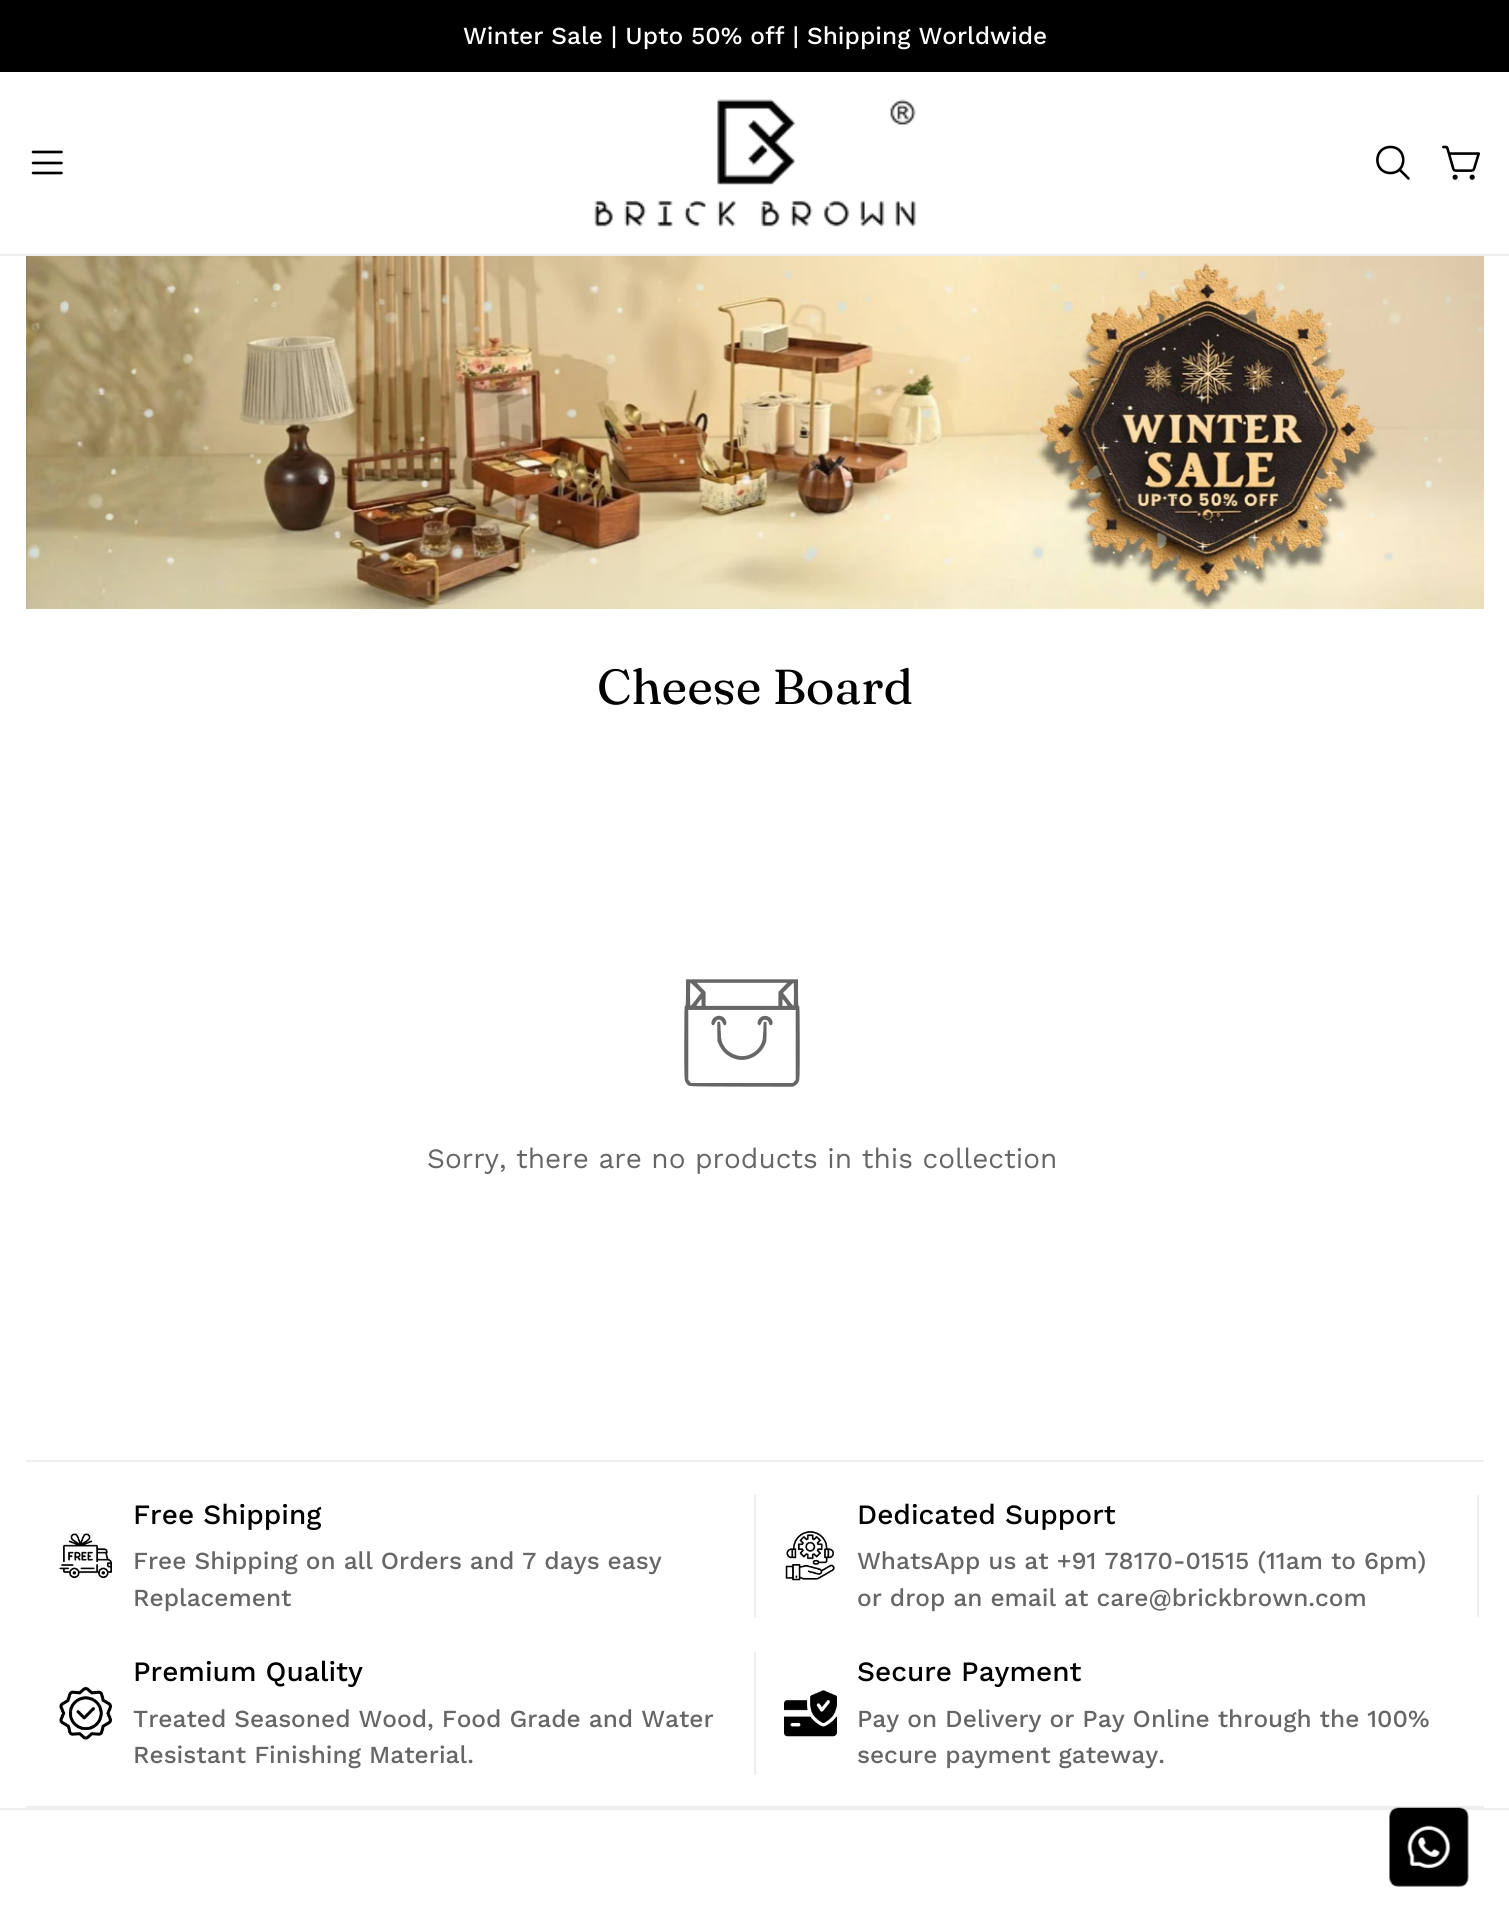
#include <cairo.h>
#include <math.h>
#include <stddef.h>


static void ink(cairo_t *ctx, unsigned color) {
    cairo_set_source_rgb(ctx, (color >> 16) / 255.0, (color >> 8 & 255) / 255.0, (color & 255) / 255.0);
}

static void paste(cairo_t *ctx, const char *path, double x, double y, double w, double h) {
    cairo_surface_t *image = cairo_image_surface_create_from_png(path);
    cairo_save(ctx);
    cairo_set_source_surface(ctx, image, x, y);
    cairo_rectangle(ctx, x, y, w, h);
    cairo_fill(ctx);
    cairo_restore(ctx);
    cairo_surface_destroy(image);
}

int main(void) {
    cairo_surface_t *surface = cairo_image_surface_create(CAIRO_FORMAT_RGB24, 1509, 1928);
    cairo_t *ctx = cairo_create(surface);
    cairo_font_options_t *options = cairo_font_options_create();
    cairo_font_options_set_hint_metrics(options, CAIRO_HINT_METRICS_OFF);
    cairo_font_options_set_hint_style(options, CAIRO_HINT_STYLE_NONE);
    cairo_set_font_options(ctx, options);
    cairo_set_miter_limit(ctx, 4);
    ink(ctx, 0xFFFFFF);
    cairo_paint(ctx);
    ink(ctx, 0x000000);
    cairo_rectangle(ctx, 0, 0, 1509, 72);
    cairo_fill(ctx);
    cairo_select_font_face(ctx, "Work Sans Medium", CAIRO_FONT_SLANT_NORMAL, CAIRO_FONT_WEIGHT_NORMAL);
    cairo_set_font_size(ctx, 24.5);
    ink(ctx, 0xFFFFFF);
    cairo_move_to(ctx, 463, 44);
    cairo_show_text(ctx, "Winter Sale | Upto 50% off | Shipping Worldwide");
    ink(ctx, 0xEEEEEE);
    cairo_rectangle(ctx, 0, 254, 1509, 2);
    cairo_fill(ctx);
    cairo_new_path(ctx);
    cairo_move_to(ctx, 33, 163);
    cairo_line_to(ctx, 61.5, 163);
    cairo_move_to(ctx, 33, 152);
    cairo_line_to(ctx, 61.5, 152);
    cairo_move_to(ctx, 33, 173);
    cairo_line_to(ctx, 61.5, 173);
    ink(ctx, 0x000000);
    cairo_set_line_width(ctx, 2.6);
    cairo_set_line_cap(ctx, CAIRO_LINE_CAP_ROUND);
    cairo_set_line_join(ctx, CAIRO_LINE_JOIN_ROUND);
    cairo_stroke(ctx);
    paste(ctx, "media/1.png", 594, 99, 322, 128);
    cairo_new_path(ctx);
    cairo_move_to(ctx, 1390.5, 173);
    cairo_curve_to(ctx, 1407.5, 173, 1407.5, 147, 1390.5, 147);
    cairo_curve_to(ctx, 1373, 147, 1373, 173, 1390.5, 173);
    cairo_close_path(ctx);
    cairo_move_to(ctx, 1399.5, 169.5);
    cairo_line_to(ctx, 1408.5, 178.5);
    cairo_stroke(ctx);
    paste(ctx, "media/2.png", 1442, 145, 38, 35);
    paste(ctx, "media/3.png", 26, 256, 1458, 353);
    cairo_select_font_face(ctx, "Fraunces", CAIRO_FONT_SLANT_NORMAL, CAIRO_FONT_WEIGHT_NORMAL);
    cairo_set_font_size(ctx, 49);
    cairo_move_to(ctx, 597, 704);
    cairo_show_text(ctx, "Cheese Board");
    paste(ctx, "media/4.png", 684, 979, 116, 108);
    cairo_select_font_face(ctx, "Work Sans", CAIRO_FONT_SLANT_NORMAL, CAIRO_FONT_WEIGHT_NORMAL);
    cairo_set_font_size(ctx, 28);
    ink(ctx, 0x666666);
    cairo_move_to(ctx, 427, 1168);
    cairo_show_text(ctx, "Sorry, there are no products in this collection");
    ink(ctx, 0xEEEEEE);
    cairo_rectangle(ctx, 26, 1460, 1458, 2);
    cairo_fill(ctx);
    cairo_rectangle(ctx, 26, 1806, 1458, 2);
    cairo_fill(ctx);
    paste(ctx, "media/5.png", 59, 1533, 53, 46);
    cairo_select_font_face(ctx, "Work Sans Medium", CAIRO_FONT_SLANT_NORMAL, CAIRO_FONT_WEIGHT_NORMAL);
    ink(ctx, 0x000000);
    cairo_move_to(ctx, 133, 1524);
    cairo_show_text(ctx, "Free Shipping");
    cairo_set_font_size(ctx, 24.5);
    ink(ctx, 0x666666);
    cairo_move_to(ctx, 133, 1569);
    cairo_show_text(ctx, "Free Shipping on all Orders and 7 days easy");
    cairo_move_to(ctx, 133, 1606);
    cairo_show_text(ctx, "Replacement");
    ink(ctx, 0xEEEEEE);
    cairo_rectangle(ctx, 754, 1495, 2, 122);
    cairo_fill(ctx);
    paste(ctx, "media/6.png", 785, 1530, 50, 51);
    cairo_set_font_size(ctx, 28);
    ink(ctx, 0x000000);
    cairo_move_to(ctx, 857, 1524);
    cairo_show_text(ctx, "Dedicated Support");
    cairo_set_font_size(ctx, 24.5);
    ink(ctx, 0x666666);
    cairo_move_to(ctx, 857, 1569);
    cairo_show_text(ctx, "WhatsApp us at +91 78170-01515 (11am to 6pm)");
    cairo_move_to(ctx, 857, 1606);
    cairo_show_text(ctx, "or drop an email at care@brickbrown.com");
    ink(ctx, 0xEEEEEE);
    cairo_rectangle(ctx, 1477, 1495, 2, 122);
    cairo_fill(ctx);
    paste(ctx, "media/7.png", 59, 1687, 53, 53);
    cairo_set_font_size(ctx, 28);
    ink(ctx, 0x000000);
    cairo_move_to(ctx, 133, 1681);
    cairo_show_text(ctx, "Premium Quality");
    cairo_set_font_size(ctx, 24.5);
    ink(ctx, 0x666666);
    cairo_move_to(ctx, 133, 1727);
    cairo_show_text(ctx, "Treated Seasoned Wood, Food Grade and Water");
    cairo_move_to(ctx, 133, 1763);
    cairo_show_text(ctx, "Resistant Finishing Material.");
    ink(ctx, 0xEEEEEE);
    cairo_rectangle(ctx, 754, 1652, 2, 123);
    cairo_fill(ctx);
    paste(ctx, "media/8.png", 784, 1690, 53, 47);
    cairo_set_font_size(ctx, 28);
    ink(ctx, 0x000000);
    cairo_move_to(ctx, 857, 1681);
    cairo_show_text(ctx, "Secure Payment");
    cairo_set_font_size(ctx, 24.5);
    ink(ctx, 0x666666);
    cairo_move_to(ctx, 857, 1727);
    cairo_show_text(ctx, "Pay on Delivery or Pay Online through the 100%");
    cairo_move_to(ctx, 857, 1763);
    cairo_show_text(ctx, "secure payment gateway.");
    ink(ctx, 0xEEEEEE);
    cairo_rectangle(ctx, 0, 1808, 1509, 2);
    cairo_fill(ctx);
    paste(ctx, "media/9.png", 1389, 1807, 80, 80);
    cairo_surface_write_to_png(surface, "image.png");
    cairo_font_options_destroy(options);
    cairo_destroy(ctx);
    cairo_surface_destroy(surface);
    return 0;
}
